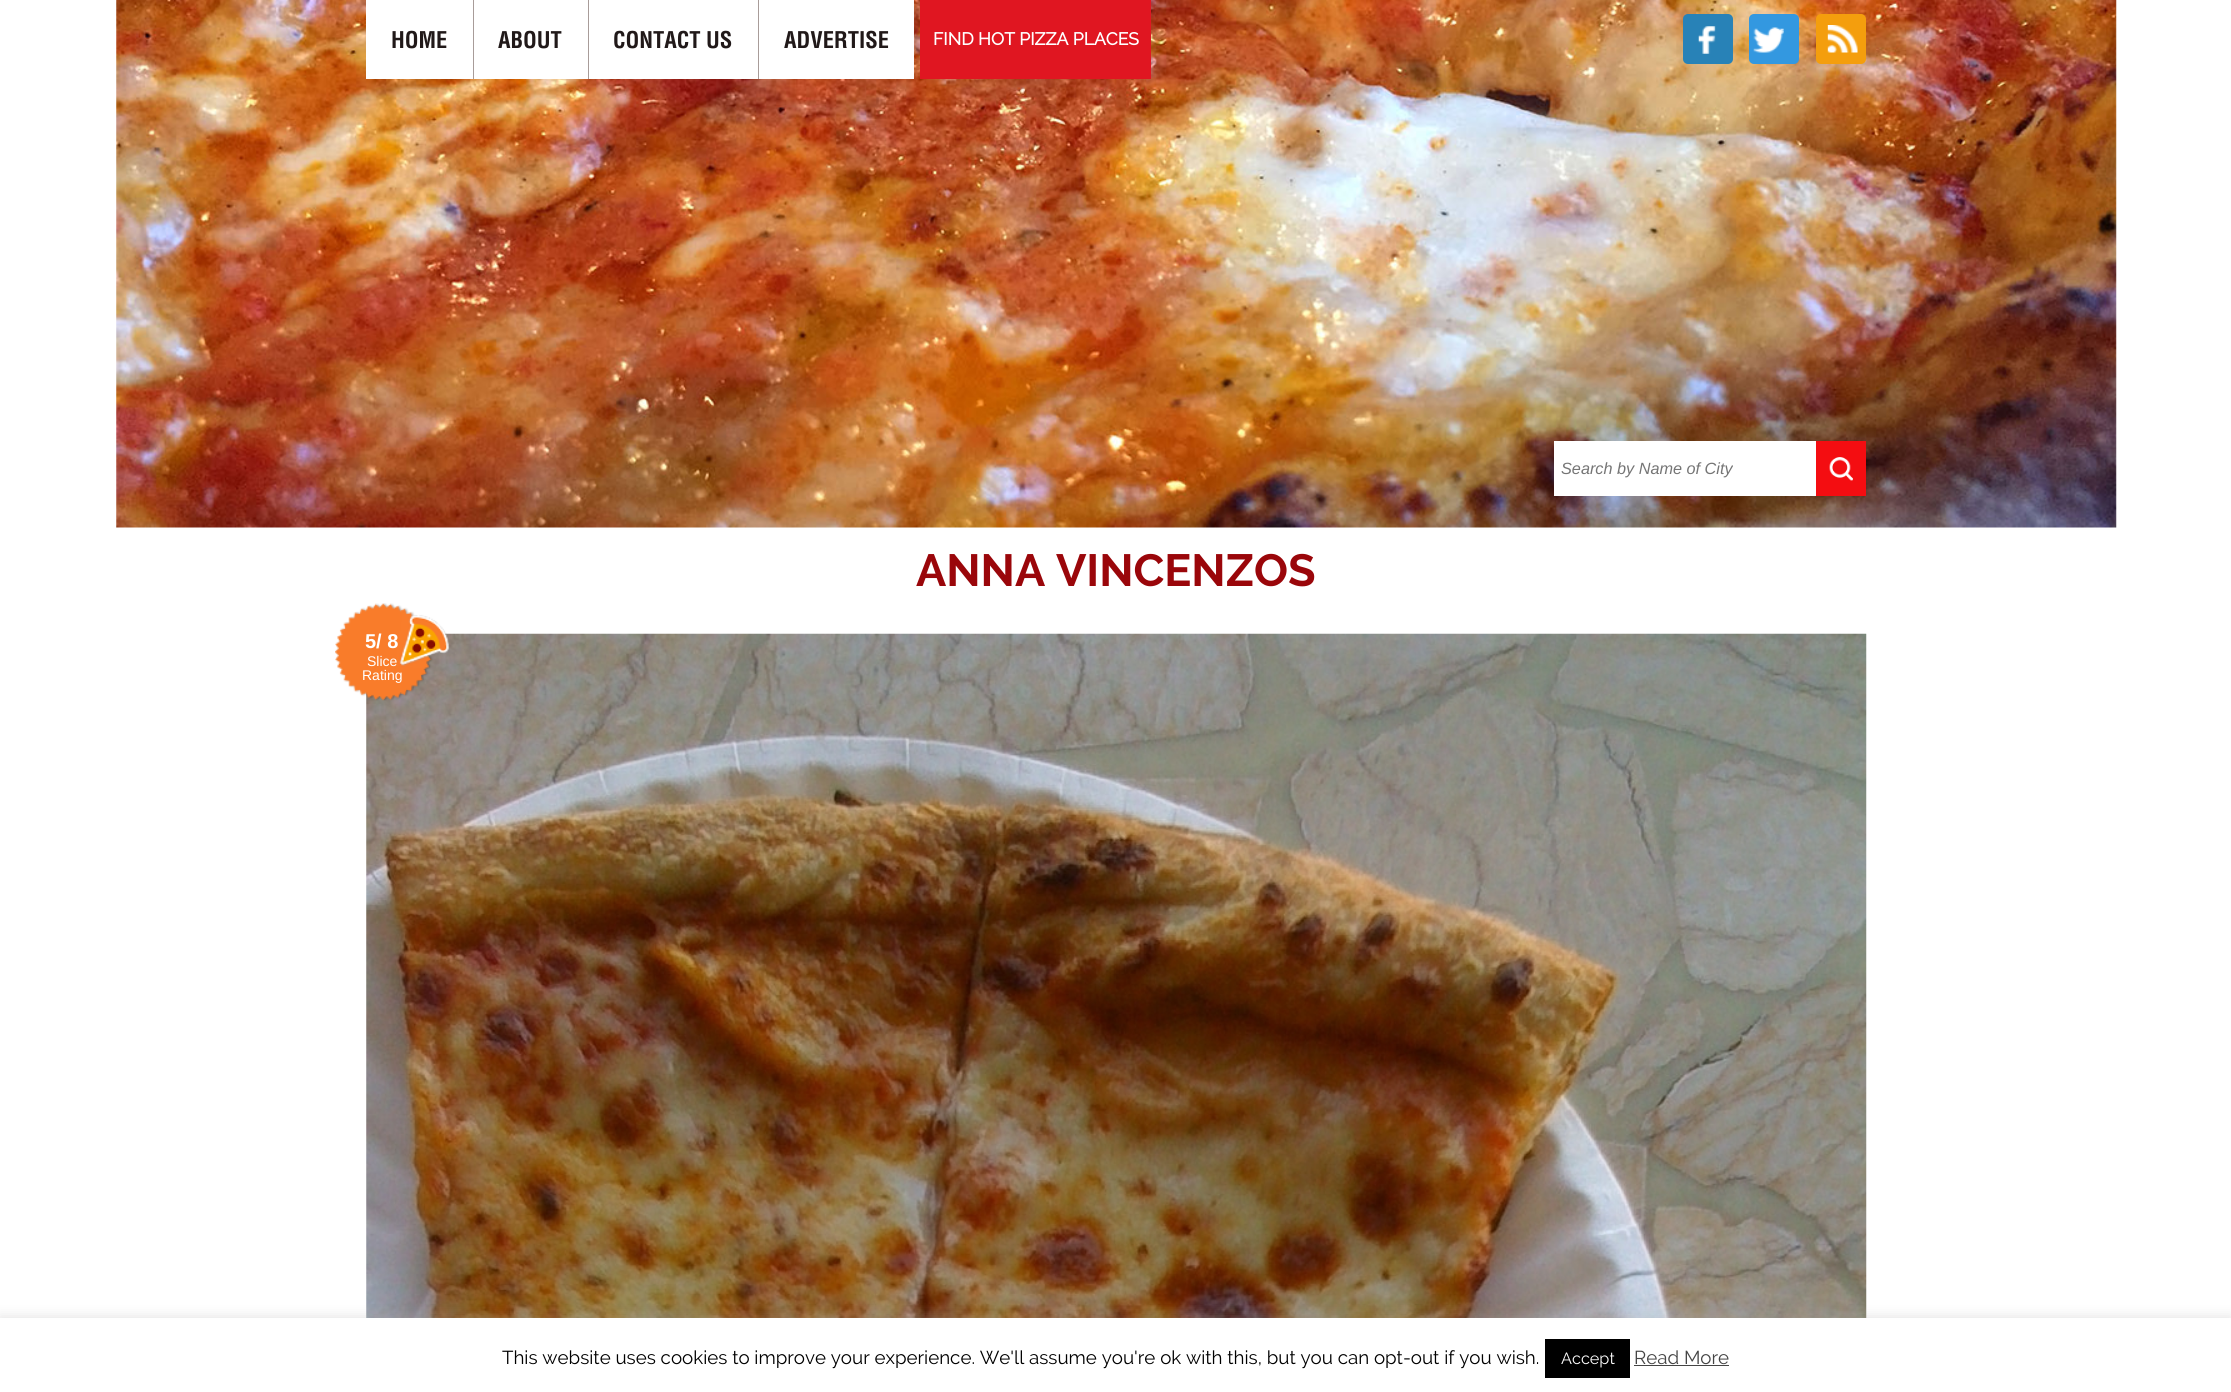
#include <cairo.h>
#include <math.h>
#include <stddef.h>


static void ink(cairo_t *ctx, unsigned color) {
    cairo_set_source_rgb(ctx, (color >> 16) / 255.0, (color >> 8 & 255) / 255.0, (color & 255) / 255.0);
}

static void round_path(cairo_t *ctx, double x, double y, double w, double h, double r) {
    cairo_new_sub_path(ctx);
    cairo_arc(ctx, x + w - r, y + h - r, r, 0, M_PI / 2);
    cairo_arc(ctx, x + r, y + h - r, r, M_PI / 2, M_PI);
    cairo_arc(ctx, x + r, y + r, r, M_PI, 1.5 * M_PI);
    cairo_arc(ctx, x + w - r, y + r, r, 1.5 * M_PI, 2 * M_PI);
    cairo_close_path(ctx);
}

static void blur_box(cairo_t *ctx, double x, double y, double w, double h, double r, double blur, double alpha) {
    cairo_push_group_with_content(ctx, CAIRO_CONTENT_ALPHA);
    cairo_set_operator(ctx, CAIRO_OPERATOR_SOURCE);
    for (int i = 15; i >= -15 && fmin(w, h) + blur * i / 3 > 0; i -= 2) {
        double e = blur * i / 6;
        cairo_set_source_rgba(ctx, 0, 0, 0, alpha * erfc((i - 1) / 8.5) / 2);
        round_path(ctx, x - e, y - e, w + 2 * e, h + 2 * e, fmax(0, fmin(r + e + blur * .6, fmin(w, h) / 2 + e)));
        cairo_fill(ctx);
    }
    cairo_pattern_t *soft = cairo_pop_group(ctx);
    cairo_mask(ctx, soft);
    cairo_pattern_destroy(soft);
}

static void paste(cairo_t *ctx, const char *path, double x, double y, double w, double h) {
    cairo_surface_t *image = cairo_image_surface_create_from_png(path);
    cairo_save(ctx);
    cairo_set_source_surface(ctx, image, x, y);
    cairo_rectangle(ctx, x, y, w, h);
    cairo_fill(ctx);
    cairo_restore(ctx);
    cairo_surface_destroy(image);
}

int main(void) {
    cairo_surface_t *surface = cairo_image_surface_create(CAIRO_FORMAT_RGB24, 2231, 1392);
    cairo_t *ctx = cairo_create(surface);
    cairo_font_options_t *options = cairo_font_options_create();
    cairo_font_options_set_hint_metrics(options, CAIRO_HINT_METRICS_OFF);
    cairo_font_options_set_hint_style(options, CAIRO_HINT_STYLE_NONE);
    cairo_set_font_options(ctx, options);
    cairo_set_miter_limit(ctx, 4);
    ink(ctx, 0xFFFFFF);
    cairo_paint(ctx);
    paste(ctx, "media/1.png", 116, 0, 2001, 528);
    ink(ctx, 0xFFFFFF);
    cairo_rectangle(ctx, 366, 0, 107, 79);
    cairo_fill(ctx);
    cairo_select_font_face(ctx, "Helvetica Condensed", CAIRO_FONT_SLANT_NORMAL, CAIRO_FONT_WEIGHT_BOLD);
    cairo_set_font_size(ctx, 22.5);
    ink(ctx, 0x211919);
    cairo_move_to(ctx, 391, 48);
    cairo_show_text(ctx, "HOME");
    ink(ctx, 0xFFFFFF);
    cairo_rectangle(ctx, 474, 0, 114, 79);
    cairo_fill(ctx);
    ink(ctx, 0xA89C99);
    cairo_rectangle(ctx, 473, 0, 1, 79);
    cairo_fill(ctx);
    ink(ctx, 0x211919);
    cairo_move_to(ctx, 498, 48);
    cairo_show_text(ctx, "ABOUT");
    ink(ctx, 0xFFFFFF);
    cairo_rectangle(ctx, 589, 0, 169, 79);
    cairo_fill(ctx);
    ink(ctx, 0xA89C99);
    cairo_rectangle(ctx, 588, 0, 1, 79);
    cairo_fill(ctx);
    ink(ctx, 0x211919);
    cairo_move_to(ctx, 613, 48);
    cairo_show_text(ctx, "CONTACT US");
    ink(ctx, 0xFFFFFF);
    cairo_rectangle(ctx, 759, 0, 155, 79);
    cairo_fill(ctx);
    ink(ctx, 0xA89C99);
    cairo_rectangle(ctx, 758, 0, 1, 79);
    cairo_fill(ctx);
    ink(ctx, 0x211919);
    cairo_move_to(ctx, 784, 48);
    cairo_show_text(ctx, "ADVERTISE");
    ink(ctx, 0xE01621);
    cairo_rectangle(ctx, 920, 0, 231, 79);
    cairo_fill(ctx);
    cairo_select_font_face(ctx, "Raleway", CAIRO_FONT_SLANT_NORMAL, CAIRO_FONT_WEIGHT_BOLD);
    cairo_set_font_size(ctx, 17.5);
    ink(ctx, 0xFFFFFF);
    cairo_move_to(ctx, 933, 45);
    cairo_show_text(ctx, "FIND HOT PIZZA PLACES");
    ink(ctx, 0x2882B7);
    round_path(ctx, 1683, 14, 50, 50, 5);
    cairo_fill(ctx);
    paste(ctx, "media/2.png", 1698, 26, 18, 28);
    ink(ctx, 0x3398E0);
    round_path(ctx, 1749, 14, 50, 50, 5);
    cairo_fill(ctx);
    paste(ctx, "media/3.png", 1753, 27, 31, 26);
    ink(ctx, 0xF49E0D);
    round_path(ctx, 1816, 14, 50, 50, 5);
    cairo_fill(ctx);
    paste(ctx, "media/4.png", 1827, 25, 31, 28);
    ink(ctx, 0xFFFFFF);
    cairo_rectangle(ctx, 1554, 441, 262, 55);
    cairo_fill(ctx);
    cairo_select_font_face(ctx, "Liberation Sans", CAIRO_FONT_SLANT_ITALIC, CAIRO_FONT_WEIGHT_NORMAL);
    cairo_set_font_size(ctx, 16.25);
    ink(ctx, 0x757575);
    cairo_move_to(ctx, 1561, 474);
    cairo_show_text(ctx, "Search by Name of City");
    ink(ctx, 0xF40D11);
    cairo_rectangle(ctx, 1816, 441, 50, 55);
    cairo_fill(ctx);
    paste(ctx, "media/5.png", 1829, 457, 24, 24);
    cairo_select_font_face(ctx, "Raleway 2", CAIRO_FONT_SLANT_NORMAL, CAIRO_FONT_WEIGHT_BOLD);
    cairo_set_font_size(ctx, 45);
    ink(ctx, 0x9A060A);
    cairo_move_to(ctx, 916, 586);
    cairo_show_text(ctx, "ANNA VINCENZOS");
    paste(ctx, "media/7.png", 366, 633, 1501, 685);
    paste(ctx, "media/6.png", 335, 603, 115, 98);
    cairo_select_font_face(ctx, "Liberation Sans", CAIRO_FONT_SLANT_NORMAL, CAIRO_FONT_WEIGHT_BOLD);
    cairo_set_font_size(ctx, 20);
    ink(ctx, 0xFFFFFF);
    cairo_move_to(ctx, 365, 648);
    cairo_show_text(ctx, "5/ 8");
    cairo_select_font_face(ctx, "Liberation Sans", CAIRO_FONT_SLANT_NORMAL, CAIRO_FONT_WEIGHT_NORMAL);
    cairo_set_font_size(ctx, 14);
    cairo_move_to(ctx, 367, 666);
    cairo_show_text(ctx, "Slice");
    cairo_move_to(ctx, 362, 680);
    cairo_show_text(ctx, "Rating");
    ink(ctx, 0xACABAB);
    blur_box(ctx, 0, 1316, 2231, 75, 0, 6, 0.3);
    ink(ctx, 0xFFFFFF);
    cairo_rectangle(ctx, 0, 1318, 2231, 74);
    cairo_fill(ctx);
    cairo_select_font_face(ctx, "Raleway", CAIRO_FONT_SLANT_NORMAL, CAIRO_FONT_WEIGHT_NORMAL);
    cairo_set_font_size(ctx, 18.75);
    ink(ctx, 0x000000);
    cairo_move_to(ctx, 502, 1364);
    cairo_show_text(ctx, "This website uses cookies to improve your experience. We'll assume you're ok with this, but you can opt-out if you wish.");
    cairo_rectangle(ctx, 1545, 1339, 85, 39);
    cairo_fill(ctx);
    cairo_set_font_size(ctx, 16.25);
    ink(ctx, 0xFFFFFF);
    cairo_move_to(ctx, 1561, 1364);
    cairo_show_text(ctx, "Accept");
    cairo_set_font_size(ctx, 18.75);
    ink(ctx, 0x444444);
    cairo_move_to(ctx, 1634, 1364);
    cairo_show_text(ctx, "Read More");
    cairo_rectangle(ctx, 1634, 1365, 95, 1);
    cairo_fill(ctx);
    cairo_surface_write_to_png(surface, "image.png");
    cairo_font_options_destroy(options);
    cairo_destroy(ctx);
    cairo_surface_destroy(surface);
    return 0;
}
